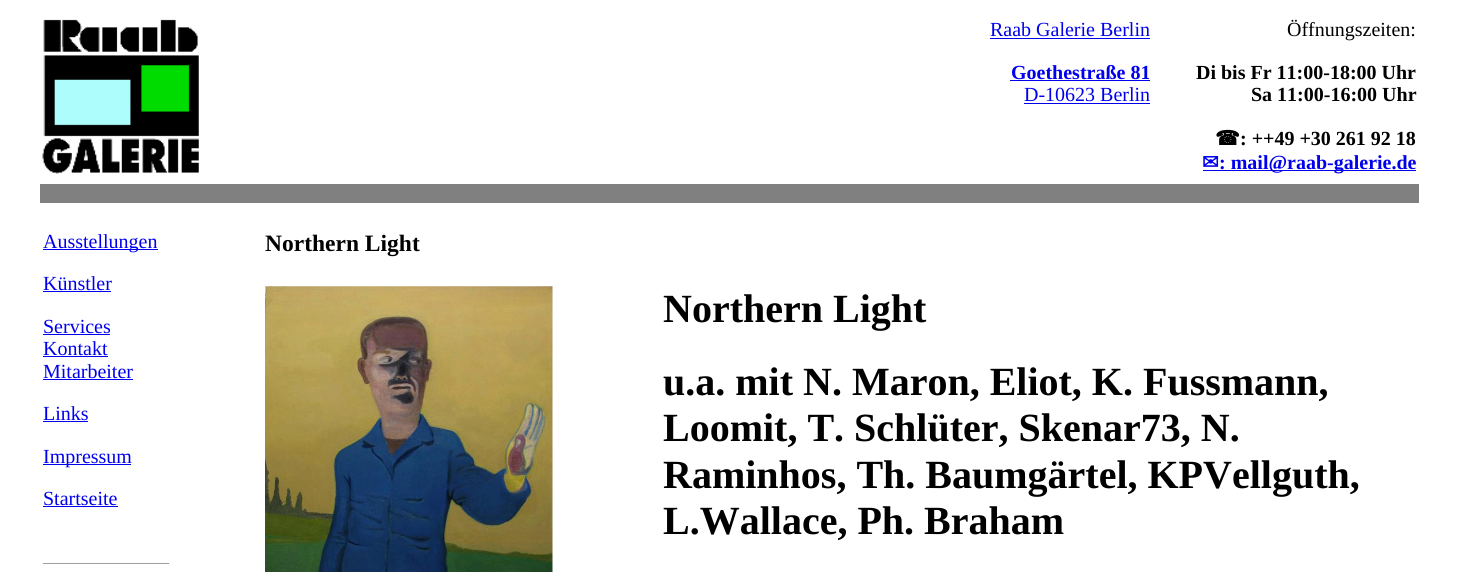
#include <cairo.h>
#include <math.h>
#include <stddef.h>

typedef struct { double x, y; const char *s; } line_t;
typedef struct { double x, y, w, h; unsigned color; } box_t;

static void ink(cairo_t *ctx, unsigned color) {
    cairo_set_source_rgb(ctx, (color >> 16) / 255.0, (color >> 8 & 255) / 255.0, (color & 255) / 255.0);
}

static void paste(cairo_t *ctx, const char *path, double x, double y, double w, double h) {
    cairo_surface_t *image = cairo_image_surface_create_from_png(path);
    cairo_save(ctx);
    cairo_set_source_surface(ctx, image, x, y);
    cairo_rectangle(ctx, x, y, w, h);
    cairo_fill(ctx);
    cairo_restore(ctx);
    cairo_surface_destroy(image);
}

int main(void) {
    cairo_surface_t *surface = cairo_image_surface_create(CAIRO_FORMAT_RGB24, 1458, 572);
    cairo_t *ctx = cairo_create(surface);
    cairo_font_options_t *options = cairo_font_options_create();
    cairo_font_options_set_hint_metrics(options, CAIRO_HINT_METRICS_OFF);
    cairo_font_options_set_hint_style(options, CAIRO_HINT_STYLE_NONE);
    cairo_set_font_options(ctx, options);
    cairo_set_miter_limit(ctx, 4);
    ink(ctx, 0xFFFFFF);
    cairo_paint(ctx);
    paste(ctx, "media/1.png", 42, 19, 157, 155);
    cairo_select_font_face(ctx, "Liberation Serif", CAIRO_FONT_SLANT_NORMAL, CAIRO_FONT_WEIGHT_NORMAL);
    cairo_set_font_size(ctx, 20);
    ink(ctx, 0x0000EE);
    cairo_move_to(ctx, 990, 36);
    cairo_show_text(ctx, "Raab Galerie Berlin");
    cairo_rectangle(ctx, 990, 38, 160, 1);
    cairo_fill(ctx);
    cairo_select_font_face(ctx, "Liberation Serif", CAIRO_FONT_SLANT_NORMAL, CAIRO_FONT_WEIGHT_BOLD);
    cairo_move_to(ctx, 1011, 79);
    cairo_show_text(ctx, "Goethestraße 81");
    cairo_rectangle(ctx, 1010, 80, 140, 1);
    cairo_fill(ctx);
    cairo_select_font_face(ctx, "Liberation Serif", CAIRO_FONT_SLANT_NORMAL, CAIRO_FONT_WEIGHT_NORMAL);
    cairo_move_to(ctx, 1024, 101);
    cairo_show_text(ctx, "D-10623 Berlin");
    cairo_rectangle(ctx, 1024, 103, 126, 1);
    cairo_fill(ctx);
    ink(ctx, 0x000000);
    cairo_move_to(ctx, 1287, 36);
    cairo_show_text(ctx, "Öffnungszeiten:");
    cairo_select_font_face(ctx, "Liberation Serif", CAIRO_FONT_SLANT_NORMAL, CAIRO_FONT_WEIGHT_BOLD);
    cairo_move_to(ctx, 1196, 79);
    cairo_show_text(ctx, "Di bis Fr 11:00-18:00 Uhr");
    cairo_move_to(ctx, 1251, 101);
    cairo_show_text(ctx, "Sa 11:00-16:00 Uhr");
    cairo_select_font_face(ctx, "DejaVu Sans", CAIRO_FONT_SLANT_NORMAL, CAIRO_FONT_WEIGHT_BOLD);
    cairo_move_to(ctx, 1215, 145);
    cairo_show_text(ctx, "☎");
    cairo_select_font_face(ctx, "Liberation Serif", CAIRO_FONT_SLANT_NORMAL, CAIRO_FONT_WEIGHT_BOLD);
    cairo_move_to(ctx, 1240, 145);
    cairo_show_text(ctx, ": ++49 +30 261 92 18");
    cairo_select_font_face(ctx, "DejaVu Sans", CAIRO_FONT_SLANT_NORMAL, CAIRO_FONT_WEIGHT_BOLD);
    ink(ctx, 0x0000EE);
    cairo_move_to(ctx, 1202, 169);
    cairo_show_text(ctx, "✉");
    cairo_rectangle(ctx, 1203, 170, 213, 1);
    cairo_fill(ctx);
    cairo_select_font_face(ctx, "Liberation Serif", CAIRO_FONT_SLANT_NORMAL, CAIRO_FONT_WEIGHT_BOLD);
    cairo_move_to(ctx, 1219, 169);
    cairo_show_text(ctx, ": mail@raab-galerie.de");
    ink(ctx, 0x808080);
    cairo_rectangle(ctx, 40, 184, 1379, 19);
    cairo_fill(ctx);
    ink(ctx, 0x0000EE);
    cairo_rectangle(ctx, 43, 249, 115, 1);
    cairo_fill(ctx);
    cairo_select_font_face(ctx, "Liberation Serif", CAIRO_FONT_SLANT_NORMAL, CAIRO_FONT_WEIGHT_NORMAL);
    cairo_move_to(ctx, 43, 248);
    cairo_show_text(ctx, "Ausstellungen");
    cairo_move_to(ctx, 43, 290);
    cairo_show_text(ctx, "Künstler");
    cairo_rectangle(ctx, 43, 291, 68, 1);
    cairo_fill(ctx);
    cairo_move_to(ctx, 43, 333);
    cairo_show_text(ctx, "Services");
    cairo_rectangle(ctx, 43, 334, 67, 1);
    cairo_fill(ctx);
    cairo_move_to(ctx, 43, 355);
    cairo_show_text(ctx, "Kontakt");
    cairo_rectangle(ctx, 43, 356, 65, 1);
    cairo_fill(ctx);
    cairo_move_to(ctx, 43, 378);
    cairo_show_text(ctx, "Mitarbeiter");
    cairo_rectangle(ctx, 43, 379, 90, 1);
    cairo_fill(ctx);
    cairo_move_to(ctx, 43, 420);
    cairo_show_text(ctx, "Links");
    cairo_rectangle(ctx, 43, 421, 45, 1);
    cairo_fill(ctx);
    cairo_rectangle(ctx, 43, 464, 88, 1);
    cairo_fill(ctx);
    cairo_move_to(ctx, 43, 463);
    cairo_show_text(ctx, "Impressum");
    cairo_move_to(ctx, 43, 505);
    cairo_show_text(ctx, "Startseite");
    {
        static const box_t items[] = {
            {43, 506, 75, 1, 0x0000EE},
            {43, 563, 127, 1, 0x9F9F9F},
            {169, 563, 1, 1, 0xEEEEEE},
        };
        for (size_t i = 0; i < sizeof items / sizeof *items; i++) {
            ink(ctx, items[i].color);
            cairo_rectangle(ctx, items[i].x, items[i].y, items[i].w, items[i].h);
            cairo_fill(ctx);
        }
    }
    cairo_select_font_face(ctx, "Liberation Serif", CAIRO_FONT_SLANT_NORMAL, CAIRO_FONT_WEIGHT_BOLD);
    cairo_set_font_size(ctx, 23.5);
    ink(ctx, 0x000000);
    cairo_move_to(ctx, 265, 251);
    cairo_show_text(ctx, "Northern Light");
    paste(ctx, "media/2.png", 265, 286, 288, 286);
    cairo_set_font_size(ctx, 40);
    {
        static const line_t items[] = {
            {663, 322, "Northern Light"},
            {663, 395, "u.a. mit N. Maron, Eliot, K. Fussmann,"},
            {663, 441, "Loomit, T. Schlüter, Skenar73, N."},
            {663, 488, "Raminhos, Th. Baumgärtel, KPVellguth,"},
            {663, 534, "L.Wallace, Ph. Braham"},
        };
        for (size_t i = 0; i < sizeof items / sizeof *items; i++) {
            cairo_move_to(ctx, items[i].x, items[i].y);
            cairo_show_text(ctx, items[i].s);
        }
    }
    cairo_surface_write_to_png(surface, "image.png");
    cairo_font_options_destroy(options);
    cairo_destroy(ctx);
    cairo_surface_destroy(surface);
    return 0;
}
